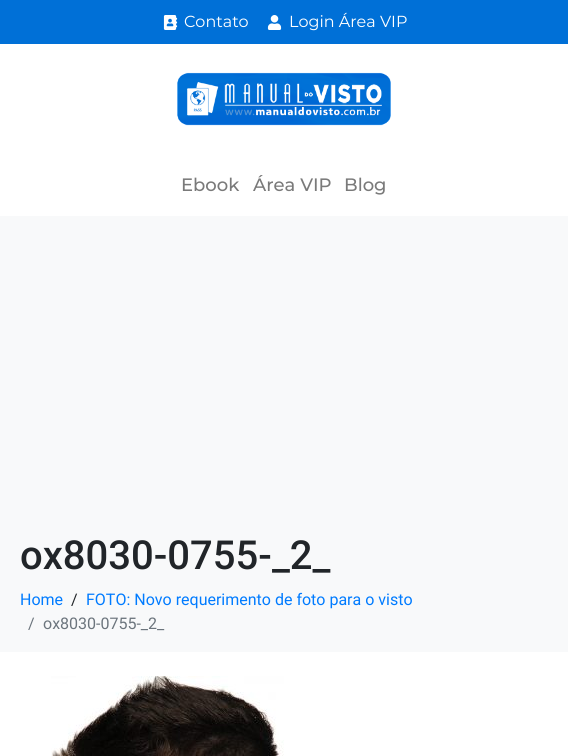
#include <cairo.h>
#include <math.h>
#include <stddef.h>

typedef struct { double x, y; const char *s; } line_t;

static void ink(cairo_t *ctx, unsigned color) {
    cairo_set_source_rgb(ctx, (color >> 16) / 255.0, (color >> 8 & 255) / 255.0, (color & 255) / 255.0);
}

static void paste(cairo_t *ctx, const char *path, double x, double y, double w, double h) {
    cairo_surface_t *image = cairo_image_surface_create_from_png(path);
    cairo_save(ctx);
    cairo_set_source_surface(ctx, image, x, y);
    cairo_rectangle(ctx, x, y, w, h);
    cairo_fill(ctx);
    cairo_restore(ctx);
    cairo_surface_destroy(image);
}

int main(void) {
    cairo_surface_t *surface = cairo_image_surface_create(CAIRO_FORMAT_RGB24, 568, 756);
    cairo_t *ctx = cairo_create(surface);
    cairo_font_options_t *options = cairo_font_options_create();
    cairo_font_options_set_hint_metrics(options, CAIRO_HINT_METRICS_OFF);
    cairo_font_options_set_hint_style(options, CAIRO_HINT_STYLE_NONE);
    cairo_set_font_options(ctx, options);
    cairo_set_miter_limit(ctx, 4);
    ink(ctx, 0xFFFFFF);
    cairo_paint(ctx);
    ink(ctx, 0x0070D7);
    cairo_rectangle(ctx, 0, 0, 568, 44);
    cairo_fill(ctx);
    paste(ctx, "media/1.png", 163, 15, 15, 15);
    cairo_select_font_face(ctx, "Montserrat", CAIRO_FONT_SLANT_NORMAL, CAIRO_FONT_WEIGHT_NORMAL);
    cairo_set_font_size(ctx, 16);
    ink(ctx, 0xFFFFFF);
    cairo_move_to(ctx, 184, 27);
    cairo_show_text(ctx, "Contato");
    paste(ctx, "media/2.png", 267, 15, 15, 15);
    cairo_move_to(ctx, 289, 27);
    cairo_show_text(ctx, "Login Área VIP");
    paste(ctx, "media/3.png", 177, 72, 214, 54);
    cairo_select_font_face(ctx, "Montserrat Medium", CAIRO_FONT_SLANT_NORMAL, CAIRO_FONT_WEIGHT_NORMAL);
    cairo_set_font_size(ctx, 18);
    ink(ctx, 0x7A7A7A);
    {
        static const line_t items[] = {
            {181, 191, "Ebook"},
            {253, 191, "Área VIP"},
            {344, 191, "Blog"},
        };
        for (size_t i = 0; i < sizeof items / sizeof *items; i++) {
            cairo_move_to(ctx, items[i].x, items[i].y);
            cairo_show_text(ctx, items[i].s);
        }
    }
    ink(ctx, 0xF8F9FA);
    cairo_rectangle(ctx, 0, 216, 568, 436);
    cairo_fill(ctx);
    cairo_select_font_face(ctx, "Roboto Medium", CAIRO_FONT_SLANT_NORMAL, CAIRO_FONT_WEIGHT_NORMAL);
    cairo_set_font_size(ctx, 40);
    ink(ctx, 0x212529);
    cairo_move_to(ctx, 20, 569);
    cairo_show_text(ctx, "ox8030-0755-_2_");
    cairo_select_font_face(ctx, "Roboto", CAIRO_FONT_SLANT_NORMAL, CAIRO_FONT_WEIGHT_NORMAL);
    cairo_set_font_size(ctx, 16);
    ink(ctx, 0x007BFF);
    cairo_move_to(ctx, 20, 605);
    cairo_show_text(ctx, "Home");
    ink(ctx, 0x212529);
    cairo_move_to(ctx, 71, 605);
    cairo_show_text(ctx, "/");
    ink(ctx, 0x007BFF);
    cairo_move_to(ctx, 86, 605);
    cairo_show_text(ctx, "FOTO: Novo requerimento de foto para o visto");
    ink(ctx, 0x6C757D);
    cairo_move_to(ctx, 28, 629);
    cairo_show_text(ctx, "/");
    cairo_move_to(ctx, 43, 629);
    cairo_show_text(ctx, "ox8030-0755-_2_");
    paste(ctx, "media/4.png", 51, 676, 233, 80);
    cairo_surface_write_to_png(surface, "image.png");
    cairo_font_options_destroy(options);
    cairo_destroy(ctx);
    cairo_surface_destroy(surface);
    return 0;
}
